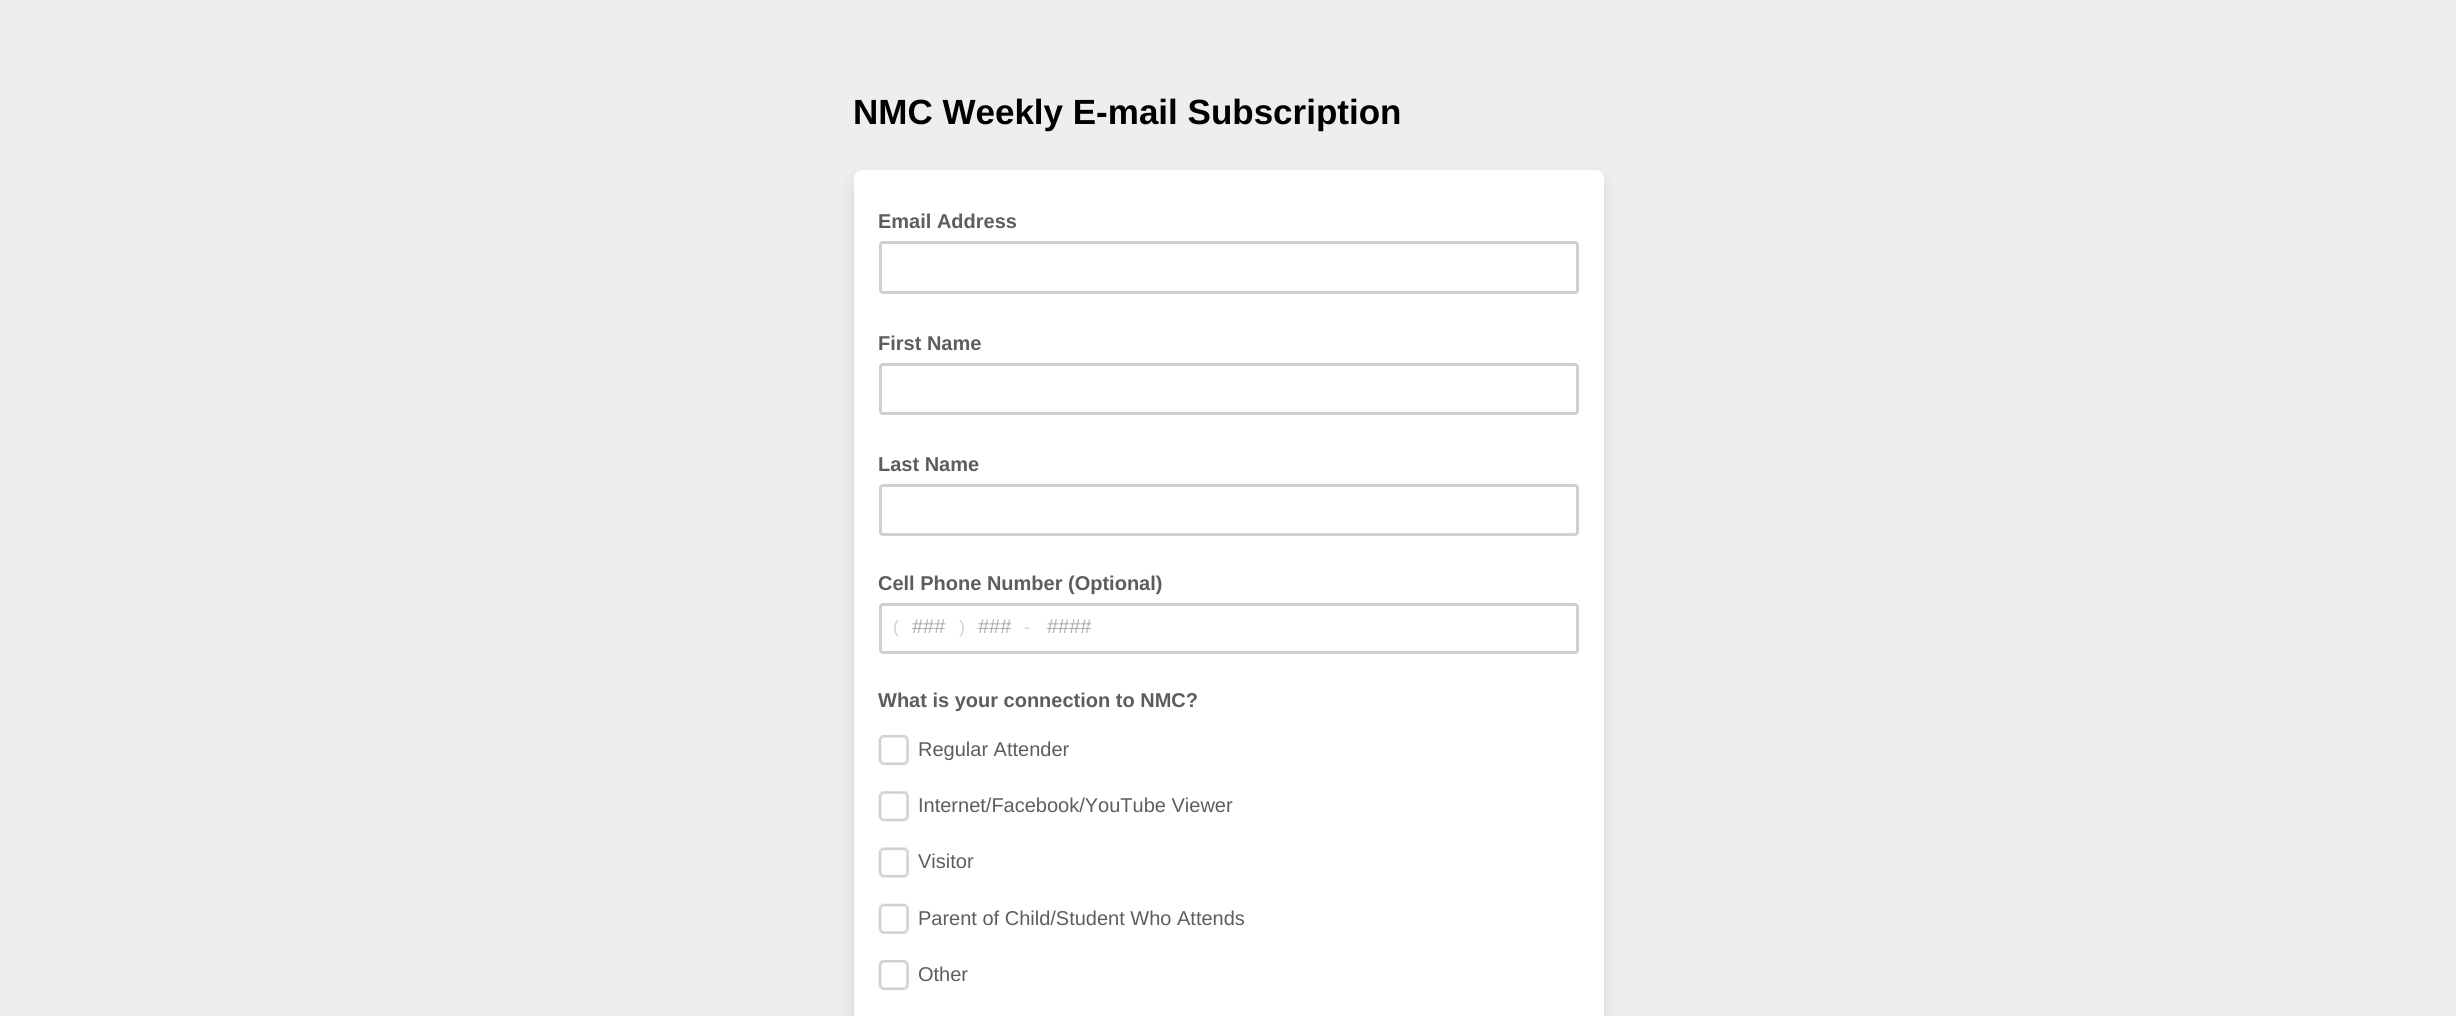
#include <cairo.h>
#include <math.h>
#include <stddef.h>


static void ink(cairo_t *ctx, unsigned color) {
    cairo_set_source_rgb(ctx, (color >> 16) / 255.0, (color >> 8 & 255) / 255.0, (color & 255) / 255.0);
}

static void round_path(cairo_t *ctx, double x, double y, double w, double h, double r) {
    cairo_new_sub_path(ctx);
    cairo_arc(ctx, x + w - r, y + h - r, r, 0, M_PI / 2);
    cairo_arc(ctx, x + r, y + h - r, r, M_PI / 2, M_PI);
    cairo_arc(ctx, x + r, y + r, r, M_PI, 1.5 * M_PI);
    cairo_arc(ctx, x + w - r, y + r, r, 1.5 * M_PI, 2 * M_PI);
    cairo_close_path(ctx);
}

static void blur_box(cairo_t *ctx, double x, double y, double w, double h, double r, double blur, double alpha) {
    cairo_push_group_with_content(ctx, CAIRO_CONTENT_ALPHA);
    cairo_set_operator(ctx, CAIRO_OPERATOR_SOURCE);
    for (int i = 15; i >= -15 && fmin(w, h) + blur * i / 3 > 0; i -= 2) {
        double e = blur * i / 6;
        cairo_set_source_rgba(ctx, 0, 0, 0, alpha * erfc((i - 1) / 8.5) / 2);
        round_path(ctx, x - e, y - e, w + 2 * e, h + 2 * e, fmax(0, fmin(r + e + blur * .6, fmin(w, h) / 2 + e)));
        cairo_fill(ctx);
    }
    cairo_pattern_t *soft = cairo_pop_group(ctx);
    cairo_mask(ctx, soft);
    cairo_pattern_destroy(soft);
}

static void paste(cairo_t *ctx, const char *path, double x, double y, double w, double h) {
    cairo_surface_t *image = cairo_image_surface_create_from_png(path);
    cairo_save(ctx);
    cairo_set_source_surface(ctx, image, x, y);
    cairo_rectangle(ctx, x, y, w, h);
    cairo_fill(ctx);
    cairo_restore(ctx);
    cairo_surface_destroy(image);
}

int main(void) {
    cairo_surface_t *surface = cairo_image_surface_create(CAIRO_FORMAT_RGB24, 2456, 1016);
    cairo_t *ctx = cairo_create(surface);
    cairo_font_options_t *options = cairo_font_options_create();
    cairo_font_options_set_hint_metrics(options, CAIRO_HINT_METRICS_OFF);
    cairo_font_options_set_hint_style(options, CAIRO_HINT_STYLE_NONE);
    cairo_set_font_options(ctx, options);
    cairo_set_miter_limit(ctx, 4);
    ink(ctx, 0xEEEEEE);
    cairo_paint(ctx);
    cairo_select_font_face(ctx, "Liberation Sans", CAIRO_FONT_SLANT_NORMAL, CAIRO_FONT_WEIGHT_BOLD);
    cairo_set_font_size(ctx, 35);
    ink(ctx, 0x000000);
    cairo_move_to(ctx, 853, 124);
    cairo_show_text(ctx, "NMC Weekly E-mail Subscription");
    ink(ctx, 0x0D1216);
    blur_box(ctx, 854, 178, 750, 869, 8, 7.5, 0.12);
    ink(ctx, 0xFFFFFF);
    round_path(ctx, 854, 170, 750, 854, 8);
    cairo_fill(ctx);
    cairo_set_font_size(ctx, 20);
    ink(ctx, 0x5D5D5D);
    cairo_move_to(ctx, 878, 228);
    cairo_show_text(ctx, "Email Address");
    round_path(ctx, 880.5, 242.5, 697, 50, 2.5);
    ink(ctx, 0xD0D0D0);
    cairo_set_line_width(ctx, 3);
    cairo_stroke(ctx);
    ink(ctx, 0x5D5D5D);
    cairo_move_to(ctx, 878, 350);
    cairo_show_text(ctx, "First Name");
    round_path(ctx, 880.5, 364.5, 697, 49, 2.5);
    ink(ctx, 0xD0D0D0);
    cairo_stroke(ctx);
    ink(ctx, 0x5D5D5D);
    cairo_move_to(ctx, 878, 471);
    cairo_show_text(ctx, "Last Name");
    round_path(ctx, 880.5, 485.5, 697, 49, 2.5);
    ink(ctx, 0xD0D0D0);
    cairo_stroke(ctx);
    ink(ctx, 0x5D5D5D);
    cairo_move_to(ctx, 878, 590);
    cairo_show_text(ctx, "Cell Phone Number (Optional)");
    round_path(ctx, 880.5, 604.5, 697, 48, 2.5);
    ink(ctx, 0xD0D0D0);
    cairo_stroke(ctx);
    cairo_select_font_face(ctx, "Liberation Sans", CAIRO_FONT_SLANT_NORMAL, CAIRO_FONT_WEIGHT_NORMAL);
    cairo_set_font_size(ctx, 18);
    cairo_move_to(ctx, 893, 633);
    cairo_show_text(ctx, "(");
    cairo_set_font_size(ctx, 20);
    ink(ctx, 0xABABAB);
    cairo_move_to(ctx, 912, 633);
    cairo_show_text(ctx, "###");
    cairo_set_font_size(ctx, 18);
    ink(ctx, 0xD0D0D0);
    cairo_move_to(ctx, 959, 633);
    cairo_show_text(ctx, ")");
    cairo_set_font_size(ctx, 20);
    ink(ctx, 0xABABAB);
    cairo_move_to(ctx, 978, 633);
    cairo_show_text(ctx, "###");
    cairo_set_font_size(ctx, 18);
    ink(ctx, 0xD0D0D0);
    cairo_move_to(ctx, 1024, 633);
    cairo_show_text(ctx, "-");
    cairo_set_font_size(ctx, 20);
    ink(ctx, 0xABABAB);
    cairo_move_to(ctx, 1047, 633);
    cairo_show_text(ctx, "####");
    cairo_select_font_face(ctx, "Liberation Sans", CAIRO_FONT_SLANT_NORMAL, CAIRO_FONT_WEIGHT_BOLD);
    ink(ctx, 0x5D5D5D);
    cairo_move_to(ctx, 878, 707);
    cairo_show_text(ctx, "What is your connection to NMC?");
    paste(ctx, "media/1.png", 878, 735, 31, 30);
    cairo_select_font_face(ctx, "Liberation Sans", CAIRO_FONT_SLANT_NORMAL, CAIRO_FONT_WEIGHT_NORMAL);
    cairo_move_to(ctx, 918, 756);
    cairo_show_text(ctx, "Regular Attender");
    paste(ctx, "media/2.png", 878, 791, 31, 31);
    cairo_move_to(ctx, 918, 812);
    cairo_show_text(ctx, "Internet/Facebook/YouTube Viewer");
    paste(ctx, "media/3.png", 878, 847, 31, 31);
    cairo_move_to(ctx, 918, 868);
    cairo_show_text(ctx, "Visitor");
    paste(ctx, "media/4.png", 878, 903, 31, 31);
    cairo_move_to(ctx, 918, 925);
    cairo_show_text(ctx, "Parent of Child/Student Who Attends");
    paste(ctx, "media/1.png", 878, 960, 31, 30);
    cairo_move_to(ctx, 918, 981);
    cairo_show_text(ctx, "Other");
    cairo_surface_write_to_png(surface, "image.png");
    cairo_font_options_destroy(options);
    cairo_destroy(ctx);
    cairo_surface_destroy(surface);
    return 0;
}
